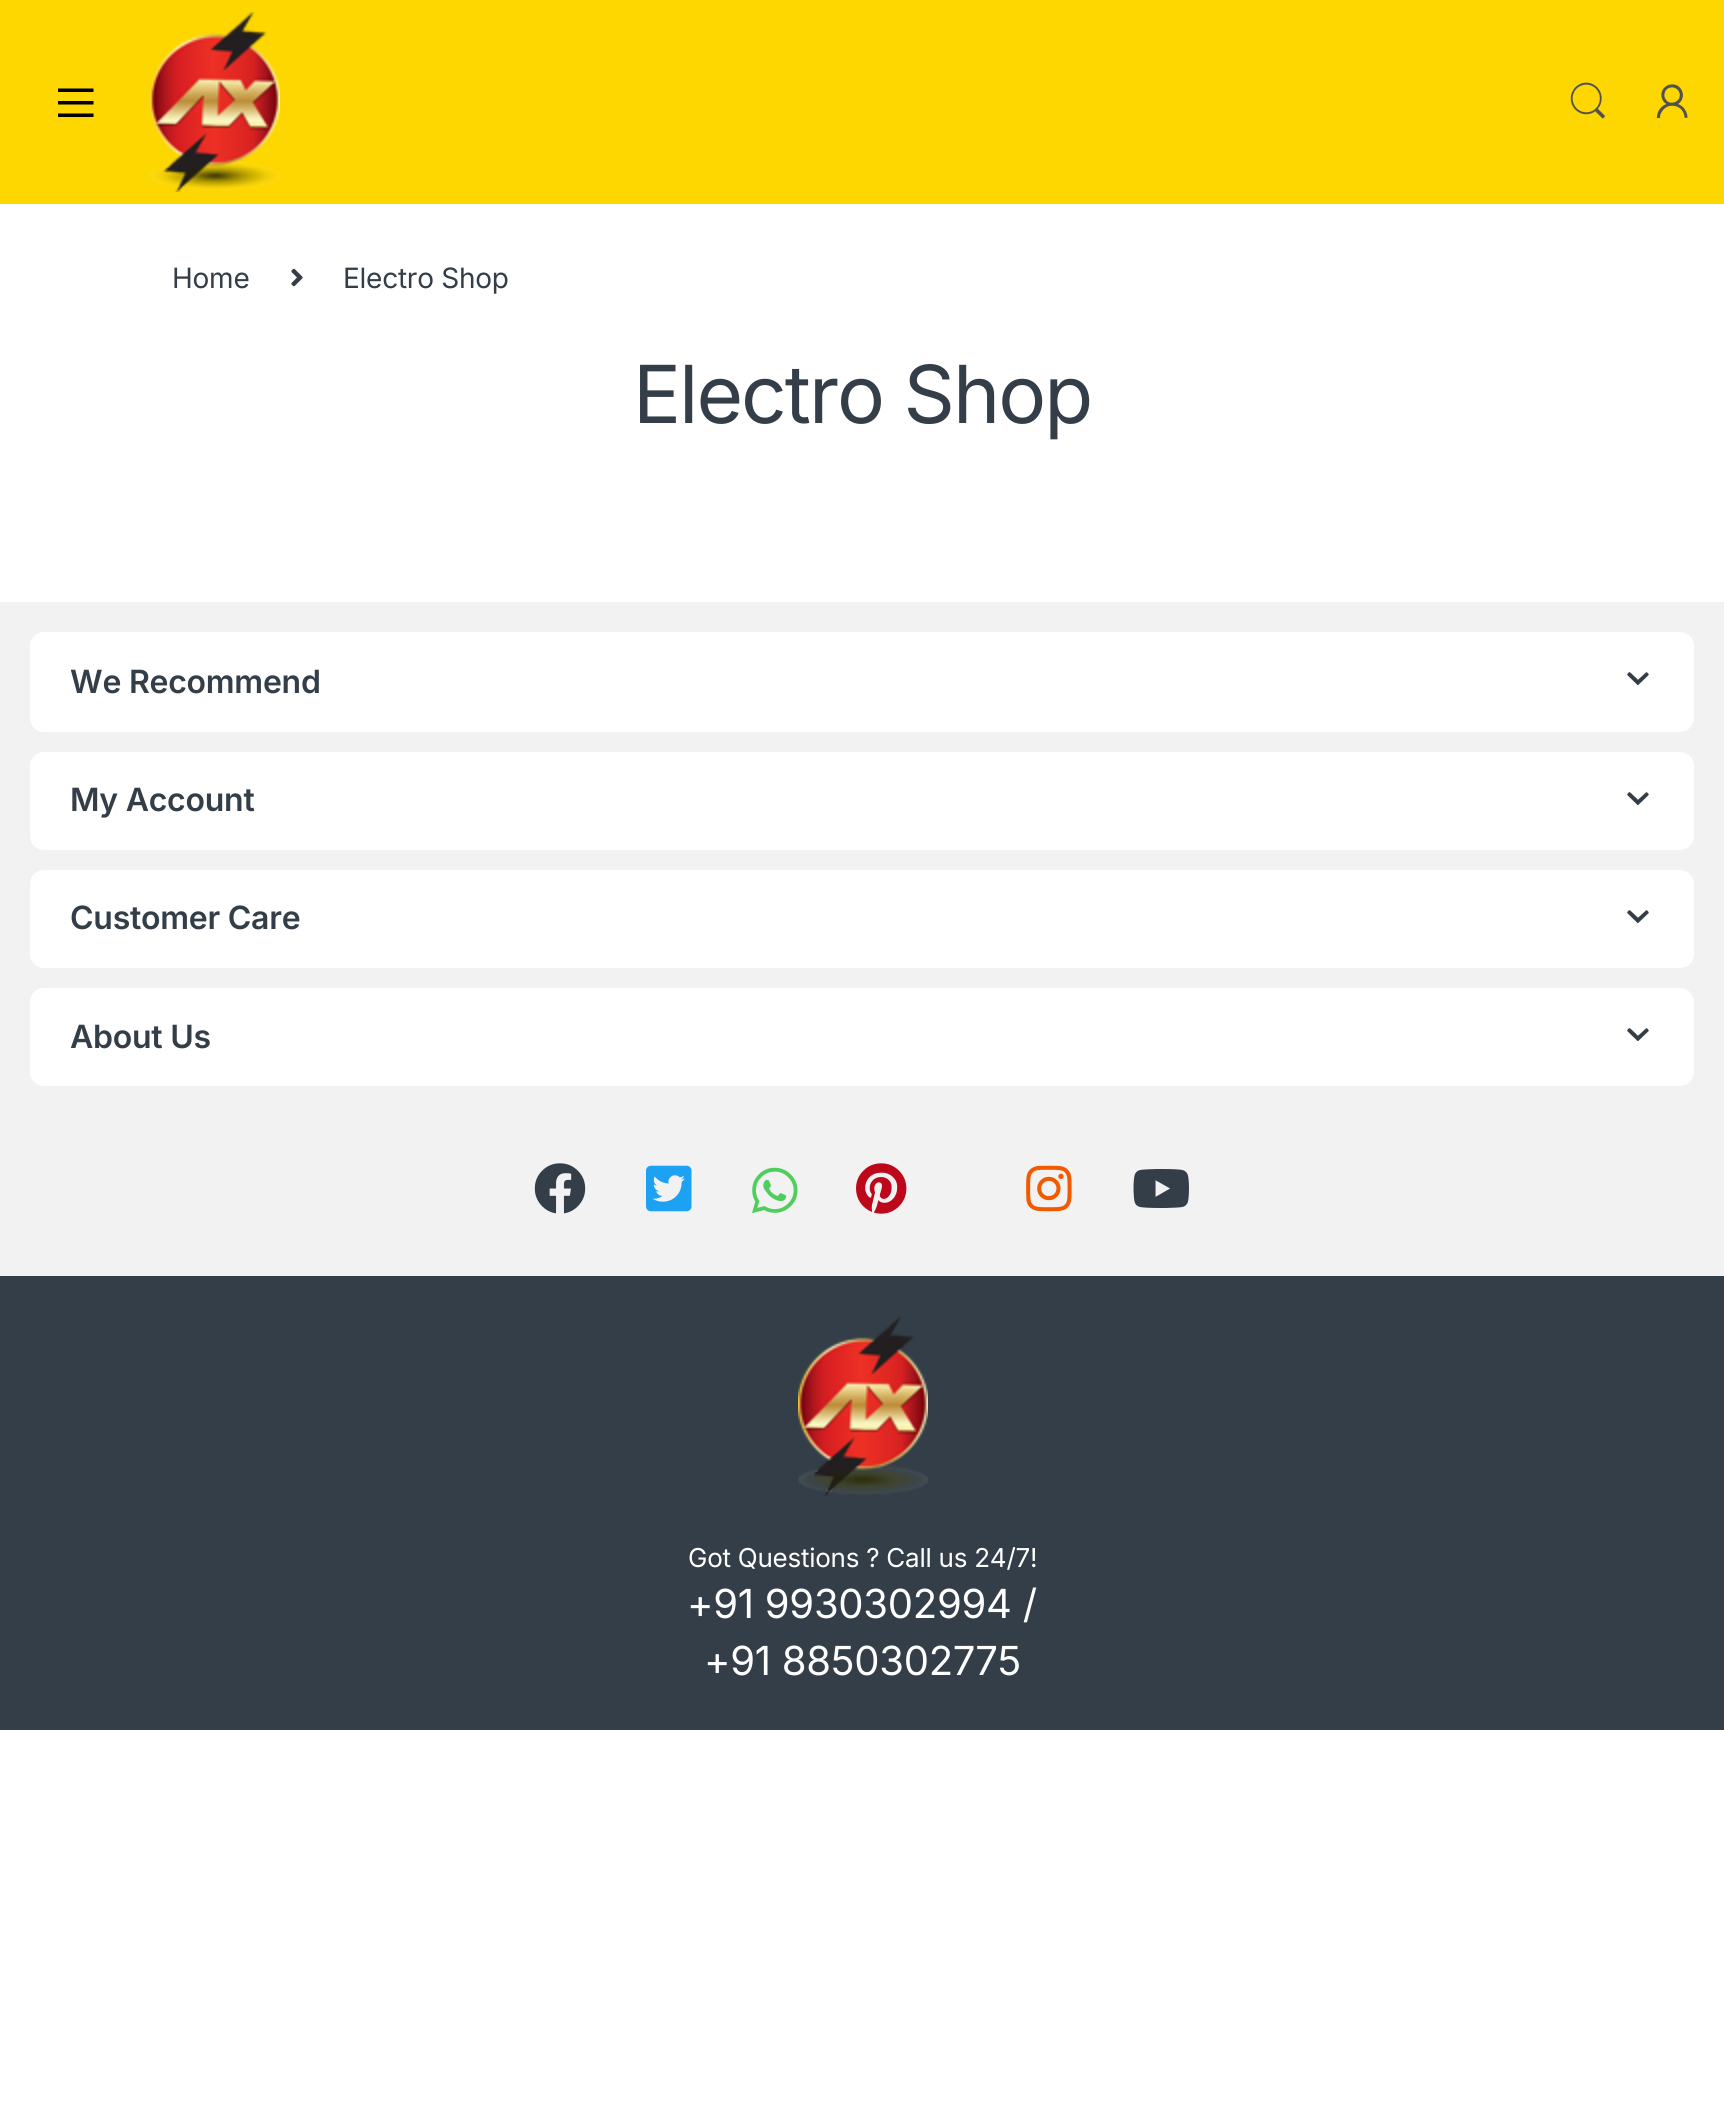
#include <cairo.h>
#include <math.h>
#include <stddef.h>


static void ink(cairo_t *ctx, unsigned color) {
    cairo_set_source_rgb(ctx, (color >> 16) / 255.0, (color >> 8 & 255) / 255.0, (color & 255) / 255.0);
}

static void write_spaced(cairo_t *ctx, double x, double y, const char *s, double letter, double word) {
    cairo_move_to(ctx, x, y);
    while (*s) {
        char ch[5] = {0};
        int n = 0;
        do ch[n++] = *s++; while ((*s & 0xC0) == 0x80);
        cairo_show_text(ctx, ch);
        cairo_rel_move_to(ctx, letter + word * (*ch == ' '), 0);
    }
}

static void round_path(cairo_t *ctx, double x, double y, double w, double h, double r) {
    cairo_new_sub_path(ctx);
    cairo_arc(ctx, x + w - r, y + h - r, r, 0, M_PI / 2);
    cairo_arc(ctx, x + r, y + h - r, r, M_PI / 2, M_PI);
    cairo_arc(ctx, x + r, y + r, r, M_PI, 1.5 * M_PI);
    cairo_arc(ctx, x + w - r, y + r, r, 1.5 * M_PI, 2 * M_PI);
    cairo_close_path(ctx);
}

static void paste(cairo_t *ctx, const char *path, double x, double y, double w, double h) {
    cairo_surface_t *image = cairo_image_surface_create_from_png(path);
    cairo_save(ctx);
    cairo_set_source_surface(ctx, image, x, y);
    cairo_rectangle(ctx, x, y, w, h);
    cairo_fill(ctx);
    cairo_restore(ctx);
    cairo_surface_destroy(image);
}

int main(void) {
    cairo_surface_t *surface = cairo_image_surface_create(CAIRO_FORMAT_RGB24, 1724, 2103);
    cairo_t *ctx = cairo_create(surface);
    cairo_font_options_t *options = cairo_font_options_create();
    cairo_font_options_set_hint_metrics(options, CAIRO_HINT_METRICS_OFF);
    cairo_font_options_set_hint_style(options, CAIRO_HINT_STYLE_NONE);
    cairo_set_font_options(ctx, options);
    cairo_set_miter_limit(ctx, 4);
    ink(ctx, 0xFFFFFF);
    cairo_paint(ctx);
    ink(ctx, 0xFED700);
    cairo_rectangle(ctx, 0, 0, 1724, 204);
    cairo_fill(ctx);
    ink(ctx, 0x000000);
    cairo_new_path(ctx);
    cairo_move_to(ctx, 58, 117);
    cairo_line_to(ctx, 58, 113.5);
    cairo_line_to(ctx, 93.5, 113.5);
    cairo_line_to(ctx, 93.5, 117);
    cairo_close_path(ctx);
    cairo_move_to(ctx, 58, 101);
    cairo_line_to(ctx, 93.5, 101);
    cairo_line_to(ctx, 93.5, 104.5);
    cairo_line_to(ctx, 58, 104.5);
    cairo_close_path(ctx);
    cairo_move_to(ctx, 58, 88.5);
    cairo_line_to(ctx, 93.5, 88.5);
    cairo_line_to(ctx, 93.5, 92);
    cairo_line_to(ctx, 58, 92);
    cairo_close_path(ctx);
    cairo_fill(ctx);
    paste(ctx, "media/1.png", 150, 12, 130, 180);
    paste(ctx, "media/2.png", 1570, 82, 36, 37);
    paste(ctx, "media/3.png", 1656, 84, 32, 35);
    cairo_select_font_face(ctx, "Inter", CAIRO_FONT_SLANT_NORMAL, CAIRO_FONT_WEIGHT_NORMAL);
    cairo_set_font_size(ctx, 28);
    ink(ctx, 0x333E48);
    write_spaced(ctx, 172, 288, "Home", -0.25, 0);
    paste(ctx, "media/4.png", 291, 268, 12, 19);
    write_spaced(ctx, 343, 288, "Electro Shop", -0.25, 0);
    cairo_set_font_size(ctx, 80);
    write_spaced(ctx, 633, 423, "Electro Shop", -2, 0);
    ink(ctx, 0xF2F2F2);
    cairo_rectangle(ctx, 0, 602, 1724, 674);
    cairo_fill(ctx);
    ink(ctx, 0xFFFFFF);
    round_path(ctx, 30, 632, 1664, 100, 14);
    cairo_fill(ctx);
    cairo_select_font_face(ctx, "Inter SemiBold", CAIRO_FONT_SLANT_NORMAL, CAIRO_FONT_WEIGHT_NORMAL);
    cairo_set_font_size(ctx, 32);
    ink(ctx, 0x333E48);
    write_spaced(ctx, 70, 693, "We Recommend", -0.25, 0);
    paste(ctx, "media/5.png", 1627, 672, 22, 13);
    ink(ctx, 0xFFFFFF);
    round_path(ctx, 30, 752, 1664, 98, 14);
    cairo_fill(ctx);
    ink(ctx, 0x333E48);
    write_spaced(ctx, 70, 811, "My Account", -0.25, 0);
    paste(ctx, "media/5.png", 1627, 792, 22, 13);
    ink(ctx, 0xFFFFFF);
    round_path(ctx, 30, 870, 1664, 98, 14);
    cairo_fill(ctx);
    ink(ctx, 0x333E48);
    write_spaced(ctx, 70, 929, "Customer Care", -0.25, 0);
    paste(ctx, "media/5.png", 1627, 910, 22, 13);
    ink(ctx, 0xFFFFFF);
    round_path(ctx, 30, 988, 1664, 98, 14);
    cairo_fill(ctx);
    ink(ctx, 0x333E48);
    write_spaced(ctx, 70, 1048, "About Us", -0.25, 0);
    paste(ctx, "media/5.png", 1627, 1028, 22, 13);
    paste(ctx, "media/6.png", 534, 1163, 52, 51);
    paste(ctx, "media/7.png", 646, 1165, 46, 47);
    paste(ctx, "media/8.png", 752, 1167, 46, 47);
    paste(ctx, "media/9.png", 856, 1163, 51, 51);
    paste(ctx, "media/10.png", 1026, 1165, 46, 47);
    paste(ctx, "media/11.png", 1133, 1169, 56, 39);
    cairo_rectangle(ctx, 0, 1276, 1724, 454);
    cairo_fill(ctx);
    paste(ctx, "media/12.png", 798, 1316, 130, 180);
    cairo_select_font_face(ctx, "Inter", CAIRO_FONT_SLANT_NORMAL, CAIRO_FONT_WEIGHT_NORMAL);
    cairo_set_font_size(ctx, 26);
    ink(ctx, 0xFFFFFF);
    write_spaced(ctx, 688, 1567, "Got Questions ? Call us 24/7!", -0.25, 0);
    cairo_set_font_size(ctx, 40);
    write_spaced(ctx, 687, 1618, "+91 9930302994 /", -0.25, 0);
    write_spaced(ctx, 704, 1675, "+91 8850302775", -0.25, 0);
    cairo_surface_write_to_png(surface, "image.png");
    cairo_font_options_destroy(options);
    cairo_destroy(ctx);
    cairo_surface_destroy(surface);
    return 0;
}
